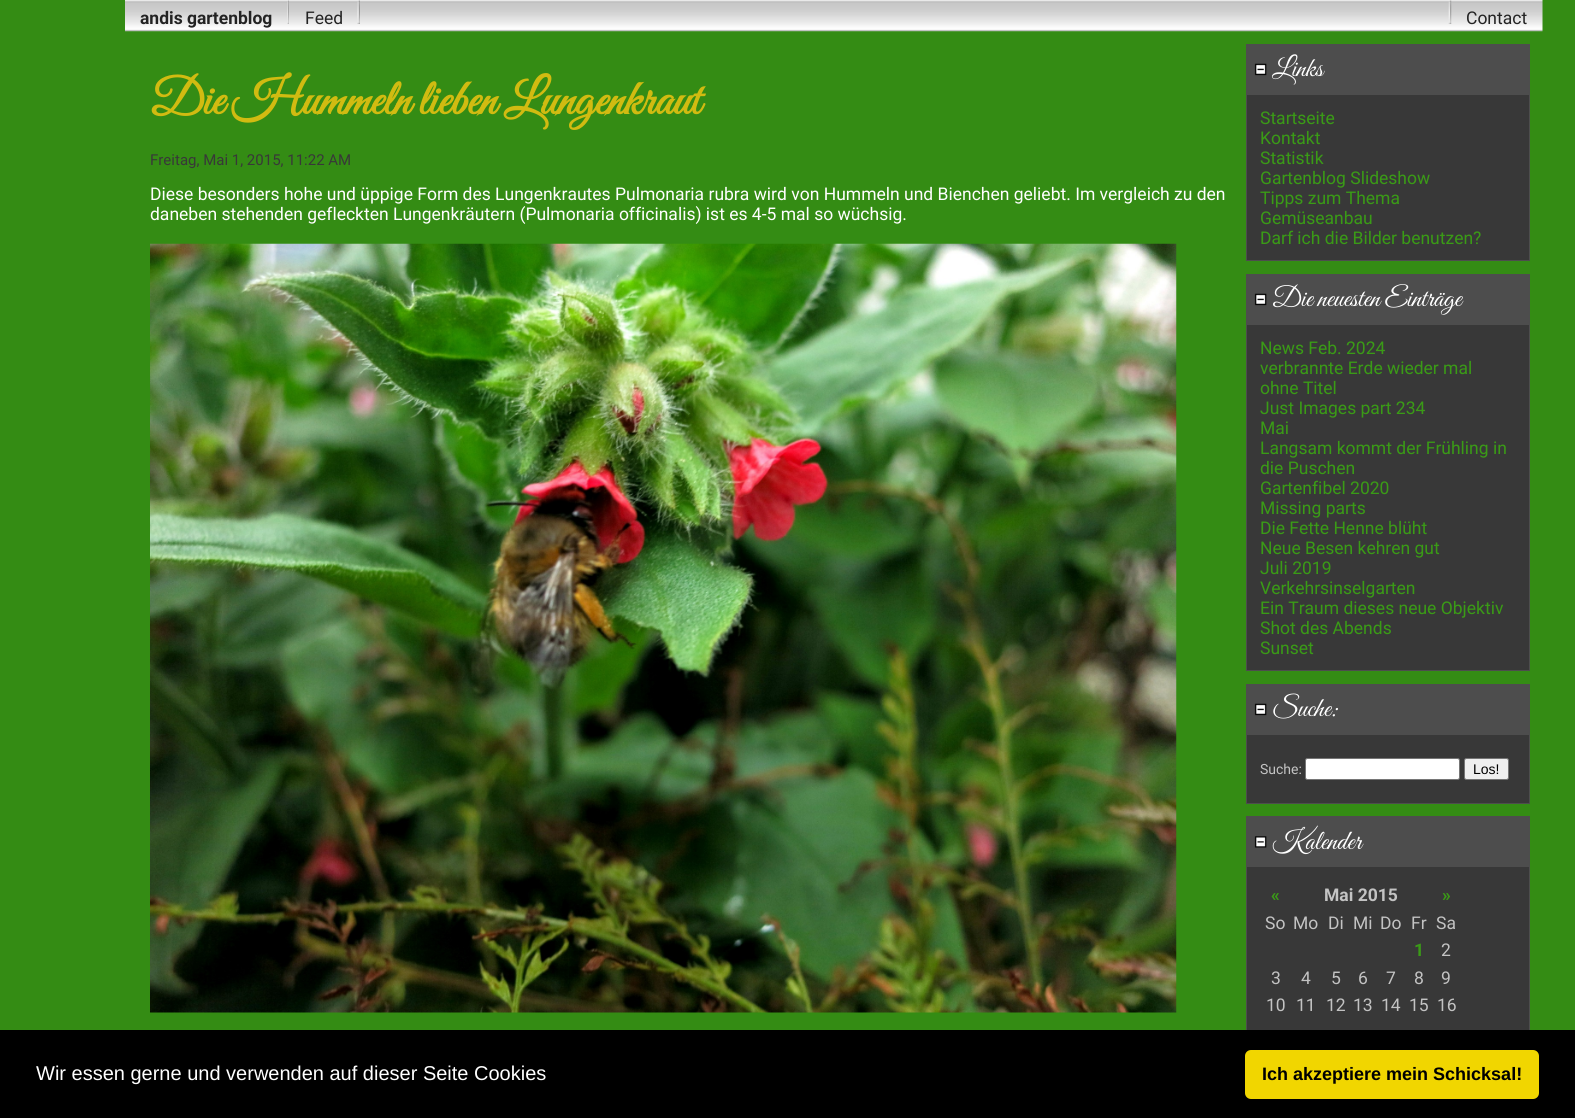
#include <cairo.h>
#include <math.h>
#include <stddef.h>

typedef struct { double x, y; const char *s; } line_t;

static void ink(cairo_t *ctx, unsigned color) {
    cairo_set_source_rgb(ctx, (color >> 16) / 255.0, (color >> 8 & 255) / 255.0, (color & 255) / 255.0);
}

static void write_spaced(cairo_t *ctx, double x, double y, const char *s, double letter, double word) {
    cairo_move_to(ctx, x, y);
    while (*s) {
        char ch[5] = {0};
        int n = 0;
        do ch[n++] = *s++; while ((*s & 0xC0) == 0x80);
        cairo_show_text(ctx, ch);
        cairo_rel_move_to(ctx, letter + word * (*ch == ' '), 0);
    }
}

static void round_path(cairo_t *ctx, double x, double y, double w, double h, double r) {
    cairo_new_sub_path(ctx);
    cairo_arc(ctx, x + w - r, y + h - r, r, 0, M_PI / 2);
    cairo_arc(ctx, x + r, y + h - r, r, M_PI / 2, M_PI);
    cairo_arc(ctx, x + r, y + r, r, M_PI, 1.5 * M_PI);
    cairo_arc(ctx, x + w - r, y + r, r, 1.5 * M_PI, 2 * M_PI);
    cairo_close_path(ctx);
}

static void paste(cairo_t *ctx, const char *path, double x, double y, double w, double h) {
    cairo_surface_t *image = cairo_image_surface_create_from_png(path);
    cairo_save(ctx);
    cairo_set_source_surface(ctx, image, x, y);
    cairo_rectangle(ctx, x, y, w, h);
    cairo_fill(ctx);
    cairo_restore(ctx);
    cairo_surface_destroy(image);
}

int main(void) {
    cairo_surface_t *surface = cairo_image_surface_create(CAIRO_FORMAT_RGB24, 1575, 1118);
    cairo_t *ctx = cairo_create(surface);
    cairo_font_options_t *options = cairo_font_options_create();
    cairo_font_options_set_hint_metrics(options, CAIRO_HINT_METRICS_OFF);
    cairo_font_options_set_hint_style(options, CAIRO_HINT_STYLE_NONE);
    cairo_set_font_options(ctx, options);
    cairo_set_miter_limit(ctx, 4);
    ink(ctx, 0x348C14);
    cairo_paint(ctx);
    paste(ctx, "media/1.png", 125, 0, 1418, 32);
    cairo_select_font_face(ctx, "Roboto", CAIRO_FONT_SLANT_NORMAL, CAIRO_FONT_WEIGHT_BOLD);
    cairo_set_font_size(ctx, 17.5);
    ink(ctx, 0x232323);
    cairo_move_to(ctx, 140, 24);
    cairo_show_text(ctx, "andis gartenblog");
    paste(ctx, "media/2.png", 287, 0, 2, 24);
    cairo_select_font_face(ctx, "Roboto", CAIRO_FONT_SLANT_NORMAL, CAIRO_FONT_WEIGHT_NORMAL);
    cairo_move_to(ctx, 305, 24);
    cairo_show_text(ctx, "Feed");
    paste(ctx, "media/3.png", 357, 0, 3, 24);
    paste(ctx, "media/4.png", 1448, 0, 4, 24);
    cairo_move_to(ctx, 1466, 24);
    cairo_show_text(ctx, "Contact");
    cairo_select_font_face(ctx, "Great Vibes", CAIRO_FONT_SLANT_NORMAL, CAIRO_FONT_WEIGHT_BOLD);
    cairo_set_font_size(ctx, 50);
    ink(ctx, 0xD1BB11);
    write_spaced(ctx, 150, 114, "Die Hummeln lieben Lungenkraut", 0, -1);
    cairo_select_font_face(ctx, "Roboto", CAIRO_FONT_SLANT_NORMAL, CAIRO_FONT_WEIGHT_NORMAL);
    cairo_set_font_size(ctx, 15);
    ink(ctx, 0x383838);
    cairo_move_to(ctx, 150, 165);
    cairo_show_text(ctx, "Freitag, Mai 1, 2015, 11:22 AM");
    cairo_set_font_size(ctx, 17.5);
    ink(ctx, 0xFFFFFF);
    cairo_move_to(ctx, 150, 200);
    cairo_show_text(ctx, "Diese besonders hohe und üppige Form des Lungenkrautes Pulmonaria rubra wird von Hummeln und Bienchen geliebt. Im vergleich zu den");
    cairo_move_to(ctx, 150, 220);
    cairo_show_text(ctx, "daneben stehenden gefleckten Lungenkräutern (Pulmonaria officinalis) ist es 4-5 mal so wüchsig.");
    paste(ctx, "media/5.png", 150, 243, 1027, 770);
    ink(ctx, 0x4D4D4D);
    cairo_rectangle(ctx, 1246, 44, 284, 50);
    cairo_fill(ctx);
    paste(ctx, "media/6.png", 1254, 63, 13, 13);
    cairo_select_font_face(ctx, "Great Vibes", CAIRO_FONT_SLANT_NORMAL, CAIRO_FONT_WEIGHT_NORMAL);
    cairo_set_font_size(ctx, 27.5);
    ink(ctx, 0xFFFFFF);
    cairo_move_to(ctx, 1272, 76);
    cairo_show_text(ctx, "Links");
    ink(ctx, 0x383838);
    cairo_rectangle(ctx, 1246.5, 94.5, 283, 166);
    cairo_fill_preserve(ctx);
    ink(ctx, 0x4D4D4D);
    cairo_set_line_width(ctx, 1);
    cairo_stroke(ctx);
    cairo_select_font_face(ctx, "Roboto", CAIRO_FONT_SLANT_NORMAL, CAIRO_FONT_WEIGHT_NORMAL);
    cairo_set_font_size(ctx, 17.5);
    ink(ctx, 0x3A9B16);
    {
        static const line_t items[] = {
            {1260, 124, "Startseite"},
            {1260, 144, "Kontakt"},
            {1260, 164, "Statistik"},
            {1260, 184, "Gartenblog Slideshow"},
            {1260, 204, "Tipps zum Thema"},
            {1260, 224, "Gemüseanbau"},
            {1260, 244, "Darf ich die Bilder benutzen?"},
        };
        for (size_t i = 0; i < sizeof items / sizeof *items; i++) {
            cairo_move_to(ctx, items[i].x, items[i].y);
            cairo_show_text(ctx, items[i].s);
        }
    }
    ink(ctx, 0x4D4D4D);
    cairo_rectangle(ctx, 1246, 274, 284, 50);
    cairo_fill(ctx);
    paste(ctx, "media/6.png", 1254, 293, 13, 13);
    cairo_select_font_face(ctx, "Great Vibes", CAIRO_FONT_SLANT_NORMAL, CAIRO_FONT_WEIGHT_NORMAL);
    cairo_set_font_size(ctx, 27.5);
    ink(ctx, 0xFFFFFF);
    cairo_move_to(ctx, 1272, 306);
    cairo_show_text(ctx, "Die neuesten Einträge");
    ink(ctx, 0x383838);
    cairo_rectangle(ctx, 1246.5, 324.5, 283, 346);
    cairo_fill_preserve(ctx);
    ink(ctx, 0x4D4D4D);
    cairo_stroke(ctx);
    cairo_select_font_face(ctx, "Roboto", CAIRO_FONT_SLANT_NORMAL, CAIRO_FONT_WEIGHT_NORMAL);
    cairo_set_font_size(ctx, 17.5);
    ink(ctx, 0x3A9B16);
    {
        static const line_t items[] = {
            {1260, 354, "News Feb. 2024"},
            {1260, 374, "verbrannte Erde wieder mal"},
            {1260, 394, "ohne Titel"},
            {1260, 414, "Just Images part 234"},
            {1260, 434, "Mai"},
            {1260, 454, "Langsam kommt der Frühling in"},
            {1260, 474, "die Puschen"},
            {1260, 494, "Gartenfibel 2020"},
            {1260, 514, "Missing parts"},
            {1260, 534, "Die Fette Henne blüht"},
            {1260, 554, "Neue Besen kehren gut"},
            {1260, 574, "Juli 2019"},
            {1260, 594, "Verkehrsinselgarten"},
            {1260, 614, "Ein Traum dieses neue Objektiv"},
            {1260, 634, "Shot des Abends"},
            {1260, 654, "Sunset"},
        };
        for (size_t i = 0; i < sizeof items / sizeof *items; i++) {
            cairo_move_to(ctx, items[i].x, items[i].y);
            cairo_show_text(ctx, items[i].s);
        }
    }
    ink(ctx, 0x4D4D4D);
    cairo_rectangle(ctx, 1246, 684, 284, 50);
    cairo_fill(ctx);
    paste(ctx, "media/6.png", 1254, 703, 13, 13);
    cairo_select_font_face(ctx, "Great Vibes", CAIRO_FONT_SLANT_NORMAL, CAIRO_FONT_WEIGHT_NORMAL);
    cairo_set_font_size(ctx, 27.5);
    ink(ctx, 0xFFFFFF);
    cairo_move_to(ctx, 1272, 716);
    cairo_show_text(ctx, "Suche:");
    ink(ctx, 0x383838);
    cairo_rectangle(ctx, 1246.5, 734.5, 283, 69);
    cairo_fill_preserve(ctx);
    ink(ctx, 0x4D4D4D);
    cairo_stroke(ctx);
    cairo_select_font_face(ctx, "Roboto", CAIRO_FONT_SLANT_NORMAL, CAIRO_FONT_WEIGHT_NORMAL);
    cairo_set_font_size(ctx, 14);
    ink(ctx, 0xC3C3C3);
    cairo_move_to(ctx, 1260, 774);
    cairo_show_text(ctx, "Suche:");
    ink(ctx, 0xFFFFFF);
    round_path(ctx, 1305.5, 758.5, 154, 21, 2);
    cairo_fill_preserve(ctx);
    ink(ctx, 0x767676);
    cairo_stroke(ctx);
    ink(ctx, 0xEFEFEF);
    round_path(ctx, 1464.5, 758.5, 44, 21, 2);
    cairo_fill_preserve(ctx);
    ink(ctx, 0x767676);
    cairo_stroke(ctx);
    cairo_select_font_face(ctx, "Liberation Sans", CAIRO_FONT_SLANT_NORMAL, CAIRO_FONT_WEIGHT_NORMAL);
    ink(ctx, 0x000000);
    cairo_move_to(ctx, 1473, 774);
    cairo_show_text(ctx, "Los!");
    ink(ctx, 0x4D4D4D);
    cairo_rectangle(ctx, 1246, 816, 284, 50);
    cairo_fill(ctx);
    paste(ctx, "media/7.png", 1254, 836, 13, 12);
    cairo_select_font_face(ctx, "Great Vibes", CAIRO_FONT_SLANT_NORMAL, CAIRO_FONT_WEIGHT_NORMAL);
    cairo_set_font_size(ctx, 27.5);
    ink(ctx, 0xFFFFFF);
    cairo_move_to(ctx, 1272, 849);
    cairo_show_text(ctx, "Kalender");
    ink(ctx, 0x383838);
    cairo_rectangle(ctx, 1247, 867, 282, 163);
    cairo_fill(ctx);
    cairo_rectangle(ctx, 1246.5, 866.5, 283, 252);
    ink(ctx, 0x4D4D4D);
    cairo_stroke(ctx);
    cairo_select_font_face(ctx, "Roboto", CAIRO_FONT_SLANT_NORMAL, CAIRO_FONT_WEIGHT_BOLD);
    cairo_set_font_size(ctx, 17.5);
    ink(ctx, 0x3A9B16);
    cairo_move_to(ctx, 1271, 901);
    cairo_show_text(ctx, "«");
    ink(ctx, 0xC3C3C3);
    cairo_move_to(ctx, 1324, 901);
    cairo_show_text(ctx, "Mai 2015");
    ink(ctx, 0x3A9B16);
    cairo_move_to(ctx, 1442, 901);
    cairo_show_text(ctx, "»");
    cairo_select_font_face(ctx, "Roboto", CAIRO_FONT_SLANT_NORMAL, CAIRO_FONT_WEIGHT_NORMAL);
    ink(ctx, 0xC3C3C3);
    {
        static const line_t items[] = {
            {1265, 929, "So"},
            {1293, 929, "Mo"},
            {1328, 929, "Di"},
            {1353, 929, "Mi"},
            {1380, 929, "Do"},
            {1411, 929, "Fr"},
            {1436, 929, "Sa"},
        };
        for (size_t i = 0; i < sizeof items / sizeof *items; i++) {
            cairo_move_to(ctx, items[i].x, items[i].y);
            cairo_show_text(ctx, items[i].s);
        }
    }
    cairo_select_font_face(ctx, "Roboto", CAIRO_FONT_SLANT_NORMAL, CAIRO_FONT_WEIGHT_BOLD);
    ink(ctx, 0x3A9B16);
    cairo_move_to(ctx, 1414, 956);
    cairo_show_text(ctx, "1");
    cairo_select_font_face(ctx, "Roboto", CAIRO_FONT_SLANT_NORMAL, CAIRO_FONT_WEIGHT_NORMAL);
    ink(ctx, 0xC3C3C3);
    {
        static const line_t items[] = {
            {1441, 956, "2"},
            {1271, 984, "3"},
            {1301, 984, "4"},
            {1331, 984, "5"},
            {1358, 984, "6"},
            {1386, 984, "7"},
            {1414, 984, "8"},
            {1441, 984, "9"},
            {1266, 1011, "10"},
            {1296, 1011, "11"},
            {1326, 1011, "12"},
            {1353, 1011, "13"},
            {1381, 1011, "14"},
            {1409, 1011, "15"},
            {1437, 1011, "16"},
        };
        for (size_t i = 0; i < sizeof items / sizeof *items; i++) {
            cairo_move_to(ctx, items[i].x, items[i].y);
            cairo_show_text(ctx, items[i].s);
        }
    }
    ink(ctx, 0x000000);
    cairo_rectangle(ctx, 0, 1030, 1575, 88);
    cairo_fill(ctx);
    cairo_select_font_face(ctx, "Liberation Sans", CAIRO_FONT_SLANT_NORMAL, CAIRO_FONT_WEIGHT_NORMAL);
    cairo_set_font_size(ctx, 20);
    ink(ctx, 0xFFFFFF);
    cairo_move_to(ctx, 36, 1080);
    cairo_show_text(ctx, "Wir essen gerne und verwenden auf dieser Seite Cookies");
    ink(ctx, 0xF1D600);
    round_path(ctx, 1245, 1050, 294, 49, 6);
    cairo_fill(ctx);
    cairo_select_font_face(ctx, "Liberation Sans", CAIRO_FONT_SLANT_NORMAL, CAIRO_FONT_WEIGHT_BOLD);
    cairo_set_font_size(ctx, 18);
    ink(ctx, 0x000000);
    cairo_move_to(ctx, 1262, 1080);
    cairo_show_text(ctx, "Ich akzeptiere mein Schicksal!");
    cairo_surface_write_to_png(surface, "image.png");
    cairo_font_options_destroy(options);
    cairo_destroy(ctx);
    cairo_surface_destroy(surface);
    return 0;
}
